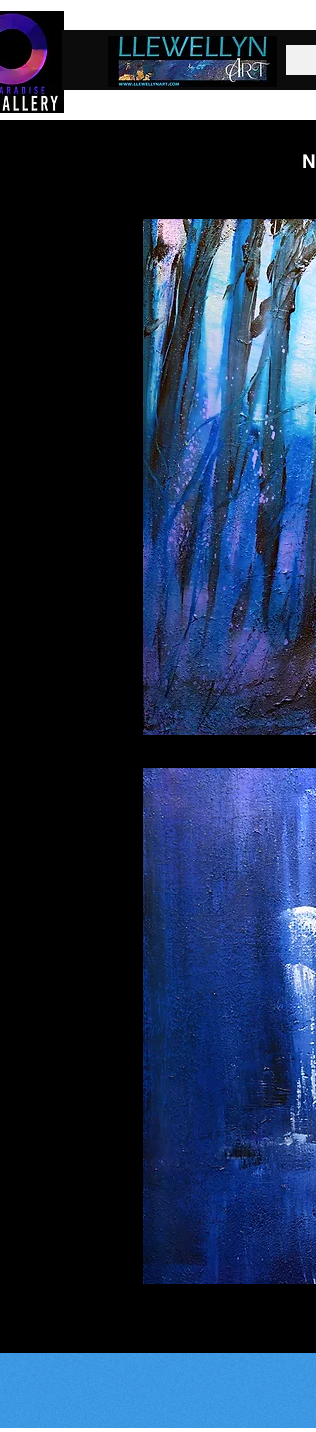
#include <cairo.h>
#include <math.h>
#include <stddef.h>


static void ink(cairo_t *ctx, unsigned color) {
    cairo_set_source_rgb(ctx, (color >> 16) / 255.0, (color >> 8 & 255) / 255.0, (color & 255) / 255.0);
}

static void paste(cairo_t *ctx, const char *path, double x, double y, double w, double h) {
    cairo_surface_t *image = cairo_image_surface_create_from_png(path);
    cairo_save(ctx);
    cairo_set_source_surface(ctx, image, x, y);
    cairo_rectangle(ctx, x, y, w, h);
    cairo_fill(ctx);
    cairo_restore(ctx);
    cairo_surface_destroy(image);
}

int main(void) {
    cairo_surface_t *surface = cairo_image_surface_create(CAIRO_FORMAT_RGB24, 316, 1432);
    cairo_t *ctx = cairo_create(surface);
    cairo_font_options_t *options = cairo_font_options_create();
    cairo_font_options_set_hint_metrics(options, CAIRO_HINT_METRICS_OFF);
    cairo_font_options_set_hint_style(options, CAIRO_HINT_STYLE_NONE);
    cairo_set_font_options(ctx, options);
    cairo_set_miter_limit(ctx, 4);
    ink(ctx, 0xFFFFFF);
    cairo_paint(ctx);
    paste(ctx, "media/1.png", 0, 11, 64, 102);
    ink(ctx, 0x0C0C0D);
    cairo_rectangle(ctx, 62, 30, 254, 60);
    cairo_fill(ctx);
    paste(ctx, "media/2.png", 108, 36, 169, 51);
    ink(ctx, 0xF1F1F1);
    cairo_rectangle(ctx, 286, 45, 30, 30);
    cairo_fill(ctx);
    ink(ctx, 0x000000);
    cairo_rectangle(ctx, 0, 120, 316, 1233);
    cairo_fill(ctx);
    cairo_select_font_face(ctx, "helvetica", CAIRO_FONT_SLANT_NORMAL, CAIRO_FONT_WEIGHT_BOLD);
    cairo_set_font_size(ctx, 19);
    ink(ctx, 0xFFFFFF);
    cairo_move_to(ctx, 302, 168);
    cairo_show_text(ctx, "N");
    paste(ctx, "media/3.png", 143, 219, 173, 516);
    paste(ctx, "media/4.png", 143, 768, 173, 516);
    ink(ctx, 0x3D9BE9);
    cairo_rectangle(ctx, 0, 1353, 316, 75);
    cairo_fill(ctx);
    paste(ctx, "media/5.png", 0, 1353, 316, 75);
    cairo_surface_write_to_png(surface, "image.png");
    cairo_font_options_destroy(options);
    cairo_destroy(ctx);
    cairo_surface_destroy(surface);
    return 0;
}
